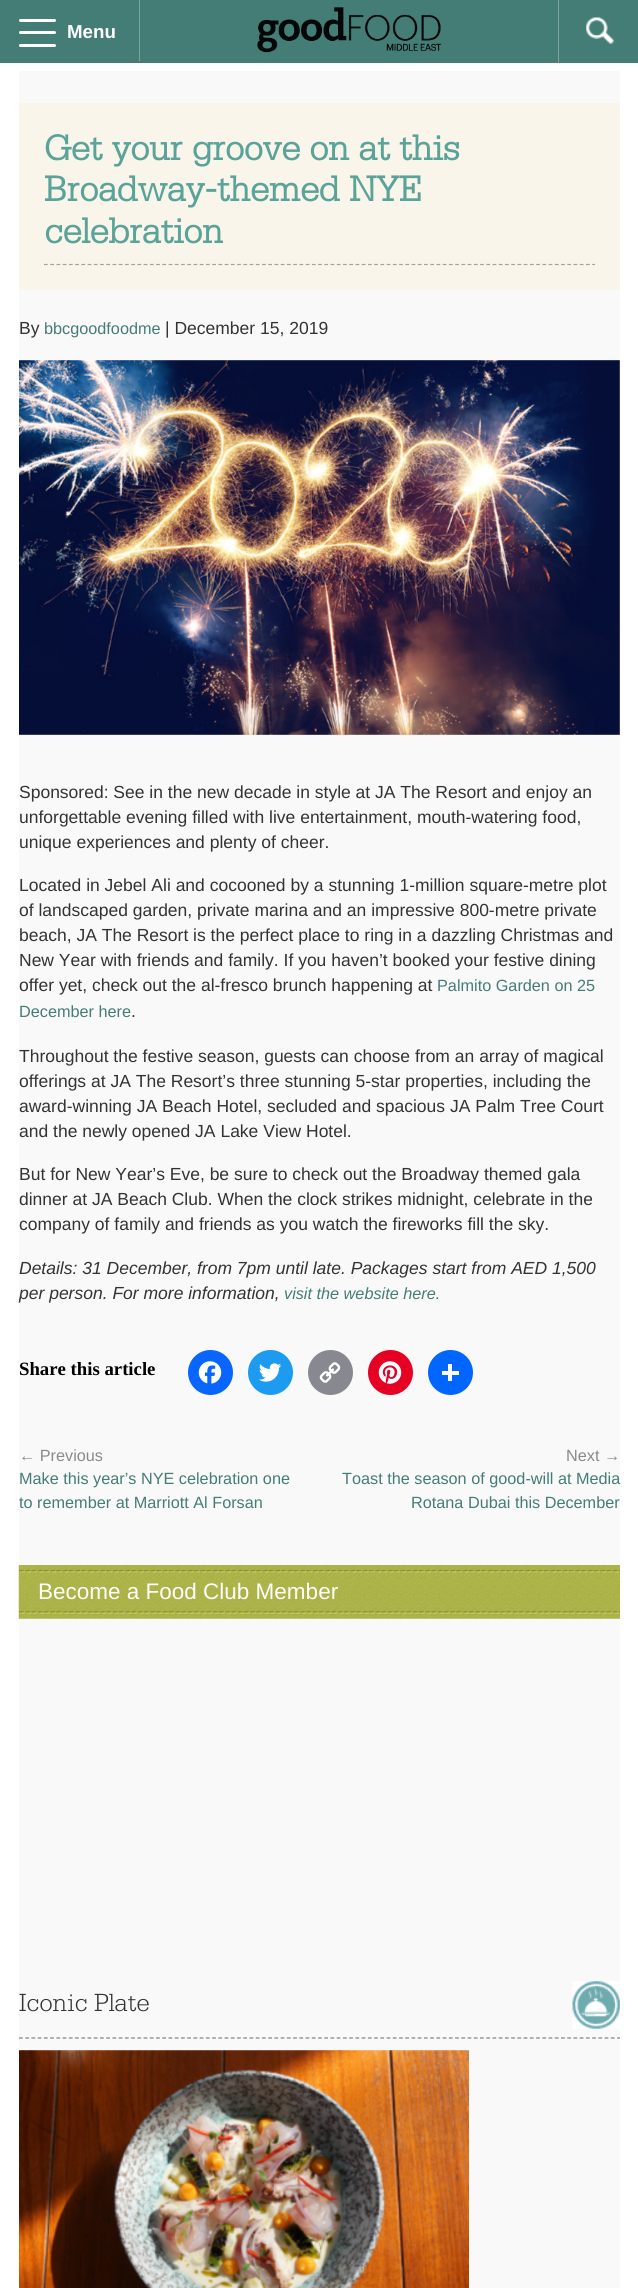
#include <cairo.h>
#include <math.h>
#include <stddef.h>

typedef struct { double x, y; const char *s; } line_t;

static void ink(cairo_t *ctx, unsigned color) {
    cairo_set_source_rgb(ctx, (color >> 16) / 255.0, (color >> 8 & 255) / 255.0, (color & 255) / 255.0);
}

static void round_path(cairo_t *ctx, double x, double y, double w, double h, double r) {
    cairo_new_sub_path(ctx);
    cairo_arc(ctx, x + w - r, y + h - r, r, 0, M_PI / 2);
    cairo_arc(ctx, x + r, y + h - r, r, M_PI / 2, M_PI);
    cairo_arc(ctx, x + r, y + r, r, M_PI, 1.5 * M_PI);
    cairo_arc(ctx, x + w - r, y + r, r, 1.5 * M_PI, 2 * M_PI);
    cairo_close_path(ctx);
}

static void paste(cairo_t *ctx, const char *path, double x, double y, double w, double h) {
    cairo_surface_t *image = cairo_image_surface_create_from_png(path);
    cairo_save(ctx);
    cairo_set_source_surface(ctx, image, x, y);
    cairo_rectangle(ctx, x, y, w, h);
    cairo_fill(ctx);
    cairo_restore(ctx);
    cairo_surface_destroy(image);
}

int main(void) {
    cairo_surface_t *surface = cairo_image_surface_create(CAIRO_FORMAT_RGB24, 638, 2288);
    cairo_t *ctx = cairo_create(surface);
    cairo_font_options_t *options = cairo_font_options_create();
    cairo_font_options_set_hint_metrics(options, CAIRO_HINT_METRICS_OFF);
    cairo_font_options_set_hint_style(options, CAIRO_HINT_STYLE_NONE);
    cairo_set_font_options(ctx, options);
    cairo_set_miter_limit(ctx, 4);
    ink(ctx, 0xFFFFFF);
    cairo_paint(ctx);
    ink(ctx, 0x447D75);
    cairo_rectangle(ctx, 0, 0, 638, 63);
    cairo_fill(ctx);
    ink(ctx, 0xFFFFFF);
    round_path(ctx, 19, 19, 37, 3, 1.5);
    cairo_fill(ctx);
    round_path(ctx, 19, 31, 37, 3, 1.5);
    cairo_fill(ctx);
    round_path(ctx, 19, 44, 37, 3, 1.5);
    cairo_fill(ctx);
    ink(ctx, 0x7CA49E);
    cairo_rectangle(ctx, 139, 0, 1, 61);
    cairo_fill(ctx);
    cairo_select_font_face(ctx, "Liberation Sans", CAIRO_FONT_SLANT_NORMAL, CAIRO_FONT_WEIGHT_BOLD);
    cairo_set_font_size(ctx, 18.75);
    ink(ctx, 0xFFFFFF);
    cairo_move_to(ctx, 67, 38);
    cairo_show_text(ctx, "Menu");
    paste(ctx, "media/1.png", 257, 7, 185, 46);
    ink(ctx, 0x7CA49E);
    cairo_rectangle(ctx, 558, 0, 1, 63);
    cairo_fill(ctx);
    paste(ctx, "media/2.png", 586, 17, 28, 27);
    ink(ctx, 0xF9F9F9);
    cairo_rectangle(ctx, 19, 71, 601, 2217);
    cairo_fill(ctx);
    ink(ctx, 0xFAF5EA);
    cairo_rectangle(ctx, 19, 103, 601, 187);
    cairo_fill(ctx);
    cairo_select_font_face(ctx, "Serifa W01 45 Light", CAIRO_FONT_SLANT_NORMAL, CAIRO_FONT_WEIGHT_BOLD);
    cairo_set_font_size(ctx, 37.5);
    ink(ctx, 0x59A399);
    {
        static const line_t items[] = {
            {44, 160, "Get your groove on at this"},
            {44, 201, "Broadway-themed NYE"},
            {44, 243, "celebration"},
        };
        for (size_t i = 0; i < sizeof items / sizeof *items; i++) {
            cairo_move_to(ctx, items[i].x, items[i].y);
            cairo_show_text(ctx, items[i].s);
        }
    }
    cairo_new_path(ctx);
    cairo_move_to(ctx, 44, 264.5);
    cairo_line_to(ctx, 595, 264.5);
    ink(ctx, 0xA7A099);
    cairo_set_line_width(ctx, 1.2);
    cairo_set_dash(ctx, (double[]){3.75, 2.48}, 2, 0);
    cairo_stroke(ctx);
    cairo_select_font_face(ctx, "Liberation Sans", CAIRO_FONT_SLANT_NORMAL, CAIRO_FONT_WEIGHT_NORMAL);
    cairo_set_font_size(ctx, 17.5);
    ink(ctx, 0x333333);
    cairo_move_to(ctx, 19, 334);
    cairo_show_text(ctx, "By");
    cairo_set_font_size(ctx, 16.25);
    ink(ctx, 0x447D75);
    cairo_move_to(ctx, 44, 334);
    cairo_show_text(ctx, "bbcgoodfoodme");
    cairo_set_font_size(ctx, 17.5);
    ink(ctx, 0x333333);
    cairo_move_to(ctx, 165, 334);
    cairo_show_text(ctx, "| December 15, 2019");
    ink(ctx, 0xFFFFFF);
    cairo_rectangle(ctx, 19, 360, 601, 375);
    cairo_fill(ctx);
    paste(ctx, "media/3.png", 19, 360, 601, 375);
    ink(ctx, 0x333333);
    {
        static const line_t items[] = {
            {19, 798, "Sponsored: See in the new decade in style at JA The Resort and enjoy an"},
            {19, 823, "unforgettable evening filled with live entertainment, mouth-watering food,"},
            {19, 848, "unique experiences and plenty of cheer."},
            {19, 891, "Located in Jebel Ali and cocooned by a stunning 1-million square-metre plot"},
            {19, 916, "of landscaped garden, private marina and an impressive 800-metre private"},
            {19, 941, "beach, JA The Resort is the perfect place to ring in a dazzling Christmas and"},
            {19, 966, "New Year with friends and family. If you haven’t booked your festive dining"},
            {19, 991, "offer yet, check out the al-fresco brunch happening at"},
        };
        for (size_t i = 0; i < sizeof items / sizeof *items; i++) {
            cairo_move_to(ctx, items[i].x, items[i].y);
            cairo_show_text(ctx, items[i].s);
        }
    }
    cairo_set_font_size(ctx, 16.25);
    ink(ctx, 0x447D75);
    cairo_move_to(ctx, 437, 991);
    cairo_show_text(ctx, "Palmito Garden on 25");
    cairo_move_to(ctx, 19, 1017);
    cairo_show_text(ctx, "December here");
    cairo_set_font_size(ctx, 17.5);
    ink(ctx, 0x333333);
    {
        static const line_t items[] = {
            {131, 1017, "."},
            {19, 1062, "Throughout the festive season, guests can choose from an array of magical"},
            {19, 1087, "offerings at JA The Resort’s three stunning 5-star properties, including the"},
            {19, 1112, "award-winning JA Beach Hotel, secluded and spacious JA Palm Tree Court"},
            {19, 1137, "and the newly opened JA Lake View Hotel."},
            {19, 1180, "But for New Year’s Eve, be sure to check out the Broadway themed gala"},
            {19, 1205, "dinner at JA Beach Club. When the clock strikes midnight, celebrate in the"},
            {19, 1230, "company of family and friends as you watch the fireworks fill the sky."},
        };
        for (size_t i = 0; i < sizeof items / sizeof *items; i++) {
            cairo_move_to(ctx, items[i].x, items[i].y);
            cairo_show_text(ctx, items[i].s);
        }
    }
    cairo_select_font_face(ctx, "Liberation Sans", CAIRO_FONT_SLANT_ITALIC, CAIRO_FONT_WEIGHT_NORMAL);
    cairo_move_to(ctx, 19, 1274);
    cairo_show_text(ctx, "Details: 31 December, from 7pm until late. Packages start from AED 1,500");
    cairo_move_to(ctx, 19, 1299);
    cairo_show_text(ctx, "per person. For more information,");
    cairo_set_font_size(ctx, 16.25);
    ink(ctx, 0x447D75);
    cairo_move_to(ctx, 284, 1299);
    cairo_show_text(ctx, "visit the website here.");
    cairo_select_font_face(ctx, "Liberation Serif", CAIRO_FONT_SLANT_NORMAL, CAIRO_FONT_WEIGHT_BOLD);
    cairo_set_font_size(ctx, 18.75);
    ink(ctx, 0x000000);
    cairo_move_to(ctx, 19, 1375);
    cairo_show_text(ctx, "Share this article");
    ink(ctx, 0x0866FF);
    cairo_new_path(ctx);
    cairo_arc(ctx, 210.5, 1372.5, 22.5, 0, 2 * M_PI);
    cairo_fill(ctx);
    paste(ctx, "media/4.png", 198, 1361, 24, 23);
    ink(ctx, 0x1D9BF0);
    cairo_arc(ctx, 270.5, 1372.5, 22.5, 0, 2 * M_PI);
    cairo_fill(ctx);
    paste(ctx, "media/5.png", 259, 1363, 23, 19);
    ink(ctx, 0x888990);
    cairo_arc(ctx, 330.5, 1372.5, 22.5, 0, 2 * M_PI);
    cairo_fill(ctx);
    paste(ctx, "media/6.png", 319, 1362, 22, 21);
    ink(ctx, 0xE60023);
    cairo_arc(ctx, 390.5, 1372.5, 22.5, 0, 2 * M_PI);
    cairo_fill(ctx);
    paste(ctx, "media/7.png", 378, 1361, 24, 23);
    ink(ctx, 0x0166FF);
    cairo_arc(ctx, 450.5, 1372.5, 22.5, 0, 2 * M_PI);
    cairo_fill(ctx);
    ink(ctx, 0xFFFFFF);
    cairo_rectangle(ctx, 448, 1364, 4, 17);
    cairo_fill(ctx);
    cairo_rectangle(ctx, 442, 1371, 17, 4);
    cairo_fill(ctx);
    cairo_select_font_face(ctx, "Liberation Sans", CAIRO_FONT_SLANT_NORMAL, CAIRO_FONT_WEIGHT_NORMAL);
    cairo_set_font_size(ctx, 16.25);
    ink(ctx, 0x8A8A8A);
    cairo_move_to(ctx, 19, 1461);
    cairo_show_text(ctx, "← Previous");
    ink(ctx, 0x447D75);
    cairo_move_to(ctx, 19, 1484);
    cairo_show_text(ctx, "Make this year’s NYE celebration one");
    cairo_move_to(ctx, 19, 1508);
    cairo_show_text(ctx, "to remember at Marriott Al Forsan");
    ink(ctx, 0x8A8A8A);
    cairo_move_to(ctx, 566, 1461);
    cairo_show_text(ctx, "Next →");
    ink(ctx, 0x447D75);
    cairo_move_to(ctx, 342, 1484);
    cairo_show_text(ctx, "Toast the season of good-will at Media");
    cairo_move_to(ctx, 411, 1508);
    cairo_show_text(ctx, "Rotana Dubai this December");
    paste(ctx, "media/8.png", 18, 1565, 602, 54);
    cairo_set_font_size(ctx, 22.5);
    ink(ctx, 0xFFFFFF);
    cairo_move_to(ctx, 38, 1599);
    cairo_show_text(ctx, "Become a Food Club Member");
    paste(ctx, "media/9.png", 572, 1981, 48, 48);
    cairo_select_font_face(ctx, "Serifa W01 45 Light Light", CAIRO_FONT_SLANT_NORMAL, CAIRO_FONT_WEIGHT_NORMAL);
    cairo_set_font_size(ctx, 26.25);
    ink(ctx, 0x333333);
    cairo_move_to(ctx, 19, 2011);
    cairo_show_text(ctx, "Iconic Plate");
    cairo_new_path(ctx);
    cairo_move_to(ctx, 19, 2038);
    cairo_line_to(ctx, 620, 2038);
    ink(ctx, 0x808080);
    cairo_stroke(ctx);
    paste(ctx, "media/10.png", 19, 2050, 450, 238);
    cairo_surface_write_to_png(surface, "image.png");
    cairo_font_options_destroy(options);
    cairo_destroy(ctx);
    cairo_surface_destroy(surface);
    return 0;
}
